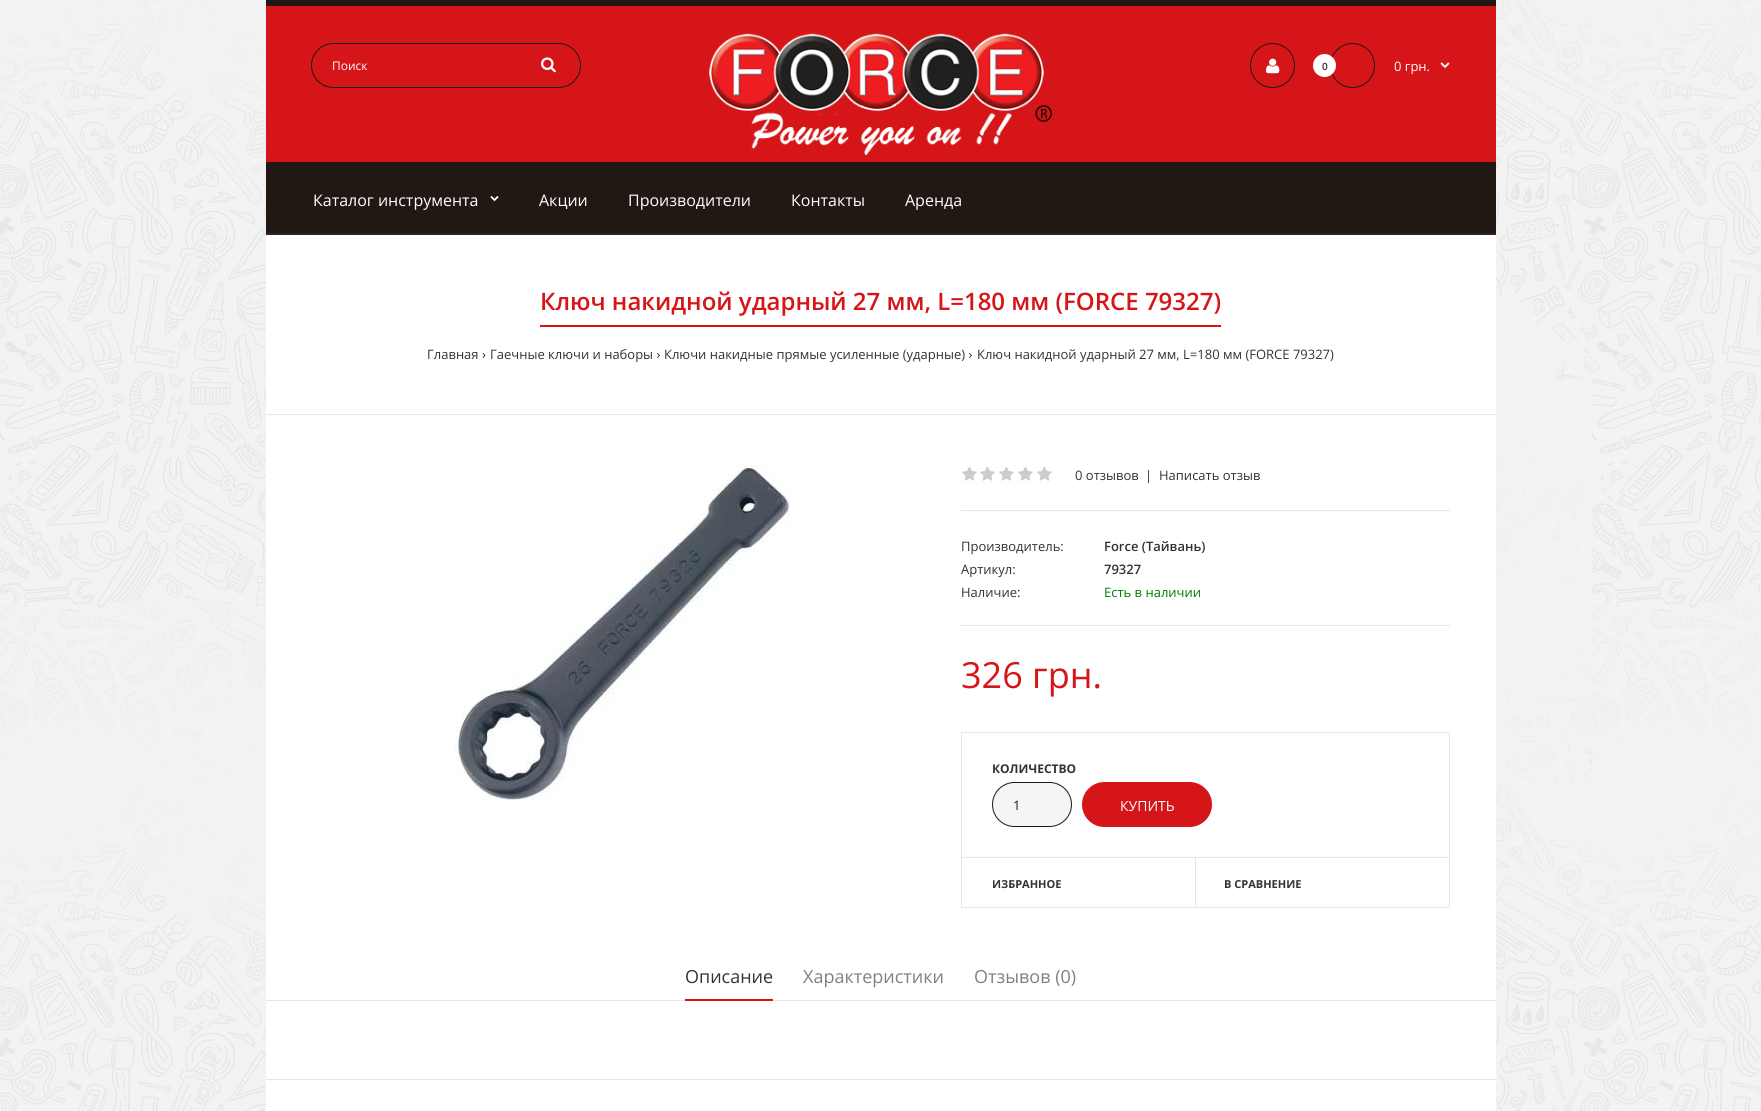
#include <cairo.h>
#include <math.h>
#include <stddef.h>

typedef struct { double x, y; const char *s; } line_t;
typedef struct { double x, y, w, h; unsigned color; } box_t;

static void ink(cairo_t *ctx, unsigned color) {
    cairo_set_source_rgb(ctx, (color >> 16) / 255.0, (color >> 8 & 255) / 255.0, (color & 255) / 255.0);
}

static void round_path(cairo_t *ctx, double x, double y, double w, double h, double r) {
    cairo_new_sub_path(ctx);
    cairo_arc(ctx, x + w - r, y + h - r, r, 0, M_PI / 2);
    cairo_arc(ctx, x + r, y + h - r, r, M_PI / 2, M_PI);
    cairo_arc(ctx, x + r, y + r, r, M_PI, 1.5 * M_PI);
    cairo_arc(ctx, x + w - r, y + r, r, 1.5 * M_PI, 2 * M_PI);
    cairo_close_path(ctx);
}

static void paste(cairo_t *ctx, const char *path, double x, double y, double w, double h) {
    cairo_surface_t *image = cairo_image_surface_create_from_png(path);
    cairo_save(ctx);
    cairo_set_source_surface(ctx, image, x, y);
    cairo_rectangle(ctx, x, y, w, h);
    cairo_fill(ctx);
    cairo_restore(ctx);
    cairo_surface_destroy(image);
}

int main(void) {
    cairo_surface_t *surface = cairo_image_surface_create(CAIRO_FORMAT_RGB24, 1761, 1111);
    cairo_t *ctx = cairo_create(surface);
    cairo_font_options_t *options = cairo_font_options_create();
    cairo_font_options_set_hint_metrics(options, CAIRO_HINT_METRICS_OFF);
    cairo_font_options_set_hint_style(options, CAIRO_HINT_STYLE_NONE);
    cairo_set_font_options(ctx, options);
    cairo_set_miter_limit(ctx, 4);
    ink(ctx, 0xFFFFFF);
    cairo_paint(ctx);
    paste(ctx, "media/1.png", 0, 0, 1761, 1111);
    {
        static const box_t items[] = {
            {266, 235, 1230, 876, 0xFFFFFF},
            {266, 6, 1230, 156, 0xD61518},
            {266, 0, 1230, 6, 0x211713},
        };
        for (size_t i = 0; i < sizeof items / sizeof *items; i++) {
            ink(ctx, items[i].color);
            cairo_rectangle(ctx, items[i].x, items[i].y, items[i].w, items[i].h);
            cairo_fill(ctx);
        }
    }
    round_path(ctx, 311.5, 43.5, 269, 44, 22);
    cairo_set_line_width(ctx, 1);
    cairo_stroke(ctx);
    cairo_select_font_face(ctx, "Open Sans", CAIRO_FONT_SLANT_NORMAL, CAIRO_FONT_WEIGHT_NORMAL);
    cairo_set_font_size(ctx, 12);
    ink(ctx, 0xFFFFFF);
    cairo_move_to(ctx, 332, 70);
    cairo_show_text(ctx, "Поиск");
    paste(ctx, "media/2.png", 541, 57, 15, 16);
    paste(ctx, "media/3.png", 709, 33, 343, 123);
    cairo_arc(ctx, 1272.5, 65.5, 22, 0, 2 * M_PI);
    ink(ctx, 0x211713);
    cairo_stroke(ctx);
    paste(ctx, "media/4.png", 1266, 58, 14, 16);
    cairo_arc(ctx, 1352.5, 65.5, 22, 0, 2 * M_PI);
    cairo_stroke(ctx);
    ink(ctx, 0xFFFFFF);
    cairo_arc(ctx, 1324.5, 65.5, 11.5, 0, 2 * M_PI);
    cairo_fill(ctx);
    cairo_select_font_face(ctx, "Open Sans SemiBold", CAIRO_FONT_SLANT_NORMAL, CAIRO_FONT_WEIGHT_NORMAL);
    cairo_set_font_size(ctx, 10);
    ink(ctx, 0x333333);
    cairo_move_to(ctx, 1322, 70);
    cairo_show_text(ctx, "0");
    cairo_select_font_face(ctx, "Open Sans", CAIRO_FONT_SLANT_NORMAL, CAIRO_FONT_WEIGHT_NORMAL);
    cairo_set_font_size(ctx, 13);
    ink(ctx, 0xFFFFFF);
    cairo_move_to(ctx, 1394, 71);
    cairo_show_text(ctx, "0 грн.");
    paste(ctx, "media/5.png", 1440, 62, 10, 7);
    ink(ctx, 0x211713);
    cairo_rectangle(ctx, 266, 162, 1230, 71);
    cairo_fill(ctx);
    ink(ctx, 0x282828);
    cairo_rectangle(ctx, 266, 233, 1230, 2);
    cairo_fill(ctx);
    cairo_set_font_size(ctx, 16);
    ink(ctx, 0xFFFFFF);
    cairo_move_to(ctx, 313, 206);
    cairo_show_text(ctx, "Каталог инструмента");
    paste(ctx, "media/6.png", 490, 196, 9, 6);
    {
        static const line_t items[] = {
            {539, 206, "Акции"},
            {628, 206, "Производители"},
            {791, 206, "Контакты"},
            {905, 206, "Аренда"},
        };
        for (size_t i = 0; i < sizeof items / sizeof *items; i++) {
            cairo_move_to(ctx, items[i].x, items[i].y);
            cairo_show_text(ctx, items[i].s);
        }
    }
    ink(ctx, 0xE6E6E6);
    cairo_rectangle(ctx, 266, 414, 1230, 1);
    cairo_fill(ctx);
    ink(ctx, 0xD61518);
    cairo_rectangle(ctx, 540, 325, 681, 2);
    cairo_fill(ctx);
    cairo_select_font_face(ctx, "Open Sans SemiBold", CAIRO_FONT_SLANT_NORMAL, CAIRO_FONT_WEIGHT_NORMAL);
    cairo_set_font_size(ctx, 24);
    cairo_move_to(ctx, 540, 310);
    cairo_show_text(ctx, "Ключ накидной ударный 27 мм, L=180 мм (FORCE 79327)");
    cairo_select_font_face(ctx, "Open Sans", CAIRO_FONT_SLANT_NORMAL, CAIRO_FONT_WEIGHT_NORMAL);
    cairo_set_font_size(ctx, 13);
    ink(ctx, 0x333333);
    {
        static const line_t items[] = {
            {427, 359, "Главная ›"},
            {490, 359, "Гаечные ключи и наборы ›"},
            {664, 359, "Ключи накидные прямые усиленные (ударные) ›"},
            {977, 359, "Ключ накидной ударный 27 мм, L=180 мм (FORCE 79327)"},
        };
        for (size_t i = 0; i < sizeof items / sizeof *items; i++) {
            cairo_move_to(ctx, items[i].x, items[i].y);
            cairo_show_text(ctx, items[i].s);
        }
    }
    paste(ctx, "media/7.png", 454, 465, 336, 336);
    ink(ctx, 0xE5E5E5);
    cairo_rectangle(ctx, 961, 510, 489, 1);
    cairo_fill(ctx);
    paste(ctx, "media/8.png", 962, 466, 15, 15);
    paste(ctx, "media/8.png", 980, 466, 15, 15);
    paste(ctx, "media/8.png", 999, 466, 15, 15);
    paste(ctx, "media/8.png", 1018, 466, 15, 15);
    paste(ctx, "media/8.png", 1037, 466, 15, 15);
    ink(ctx, 0x333333);
    {
        static const line_t items[] = {
            {1075, 480, "0 отзывов"},
            {1145, 480, "|"},
            {1159, 480, "Написать отзыв"},
        };
        for (size_t i = 0; i < sizeof items / sizeof *items; i++) {
            cairo_move_to(ctx, items[i].x, items[i].y);
            cairo_show_text(ctx, items[i].s);
        }
    }
    ink(ctx, 0xE6E6E6);
    cairo_rectangle(ctx, 961, 625, 489, 1);
    cairo_fill(ctx);
    ink(ctx, 0x333333);
    cairo_move_to(ctx, 961, 551);
    cairo_show_text(ctx, "Производитель:");
    cairo_select_font_face(ctx, "Open Sans SemiBold", CAIRO_FONT_SLANT_NORMAL, CAIRO_FONT_WEIGHT_NORMAL);
    cairo_move_to(ctx, 1104, 551);
    cairo_show_text(ctx, "Force (Тайвань)");
    cairo_select_font_face(ctx, "Open Sans", CAIRO_FONT_SLANT_NORMAL, CAIRO_FONT_WEIGHT_NORMAL);
    cairo_move_to(ctx, 961, 574);
    cairo_show_text(ctx, "Артикул:");
    cairo_select_font_face(ctx, "Open Sans SemiBold", CAIRO_FONT_SLANT_NORMAL, CAIRO_FONT_WEIGHT_NORMAL);
    cairo_move_to(ctx, 1104, 574);
    cairo_show_text(ctx, "79327");
    cairo_select_font_face(ctx, "Open Sans", CAIRO_FONT_SLANT_NORMAL, CAIRO_FONT_WEIGHT_NORMAL);
    cairo_move_to(ctx, 961, 597);
    cairo_show_text(ctx, "Наличие:");
    ink(ctx, 0x008000);
    cairo_move_to(ctx, 1104, 597);
    cairo_show_text(ctx, "Есть в наличии");
    cairo_set_font_size(ctx, 36);
    ink(ctx, 0xD61518);
    cairo_move_to(ctx, 961, 688);
    cairo_show_text(ctx, "326 грн.");
    cairo_rectangle(ctx, 961.5, 732.5, 488, 175);
    ink(ctx, 0xE5E5E5);
    cairo_stroke(ctx);
    cairo_select_font_face(ctx, "Open Sans", CAIRO_FONT_SLANT_NORMAL, CAIRO_FONT_WEIGHT_BOLD);
    cairo_set_font_size(ctx, 12);
    ink(ctx, 0x333333);
    cairo_move_to(ctx, 992, 773);
    cairo_show_text(ctx, "КОЛИЧЕСТВО");
    ink(ctx, 0xF5F5F5);
    round_path(ctx, 992.5, 782.5, 79, 44, 22);
    cairo_fill_preserve(ctx);
    ink(ctx, 0x211713);
    cairo_stroke(ctx);
    cairo_select_font_face(ctx, "Open Sans", CAIRO_FONT_SLANT_NORMAL, CAIRO_FONT_WEIGHT_NORMAL);
    cairo_set_font_size(ctx, 13);
    cairo_move_to(ctx, 1013, 810);
    cairo_show_text(ctx, "1");
    ink(ctx, 0xD61518);
    round_path(ctx, 1082, 782, 130, 45, 22.5);
    cairo_fill(ctx);
    cairo_set_font_size(ctx, 14);
    ink(ctx, 0xFFFFFF);
    cairo_move_to(ctx, 1120, 811);
    cairo_show_text(ctx, "КУПИТЬ");
    ink(ctx, 0xE5E5E5);
    cairo_rectangle(ctx, 962, 857, 487, 1);
    cairo_fill(ctx);
    cairo_select_font_face(ctx, "Open Sans", CAIRO_FONT_SLANT_NORMAL, CAIRO_FONT_WEIGHT_BOLD);
    cairo_set_font_size(ctx, 11);
    ink(ctx, 0x333333);
    cairo_move_to(ctx, 992, 888);
    cairo_show_text(ctx, "ИЗБРАННОЕ");
    ink(ctx, 0xE5E5E5);
    cairo_rectangle(ctx, 1195, 858, 1, 49);
    cairo_fill(ctx);
    ink(ctx, 0x333333);
    cairo_move_to(ctx, 1224, 888);
    cairo_show_text(ctx, "В СРАВНЕНИЕ");
    cairo_select_font_face(ctx, "Open Sans", CAIRO_FONT_SLANT_NORMAL, CAIRO_FONT_WEIGHT_NORMAL);
    cairo_set_font_size(ctx, 18);
    cairo_move_to(ctx, 685, 983);
    cairo_show_text(ctx, "Описание");
    ink(ctx, 0xE6E6E6);
    cairo_rectangle(ctx, 266, 1000, 1230, 1);
    cairo_fill(ctx);
    ink(ctx, 0xD61518);
    cairo_rectangle(ctx, 685, 999, 88, 2);
    cairo_fill(ctx);
    ink(ctx, 0x808080);
    cairo_move_to(ctx, 803, 983);
    cairo_show_text(ctx, "Характеристики");
    cairo_move_to(ctx, 974, 983);
    cairo_show_text(ctx, "Отзывов (0)");
    ink(ctx, 0xE6E6E6);
    cairo_rectangle(ctx, 266, 1079, 1230, 1);
    cairo_fill(ctx);
    cairo_surface_write_to_png(surface, "image.png");
    cairo_font_options_destroy(options);
    cairo_destroy(ctx);
    cairo_surface_destroy(surface);
    return 0;
}
